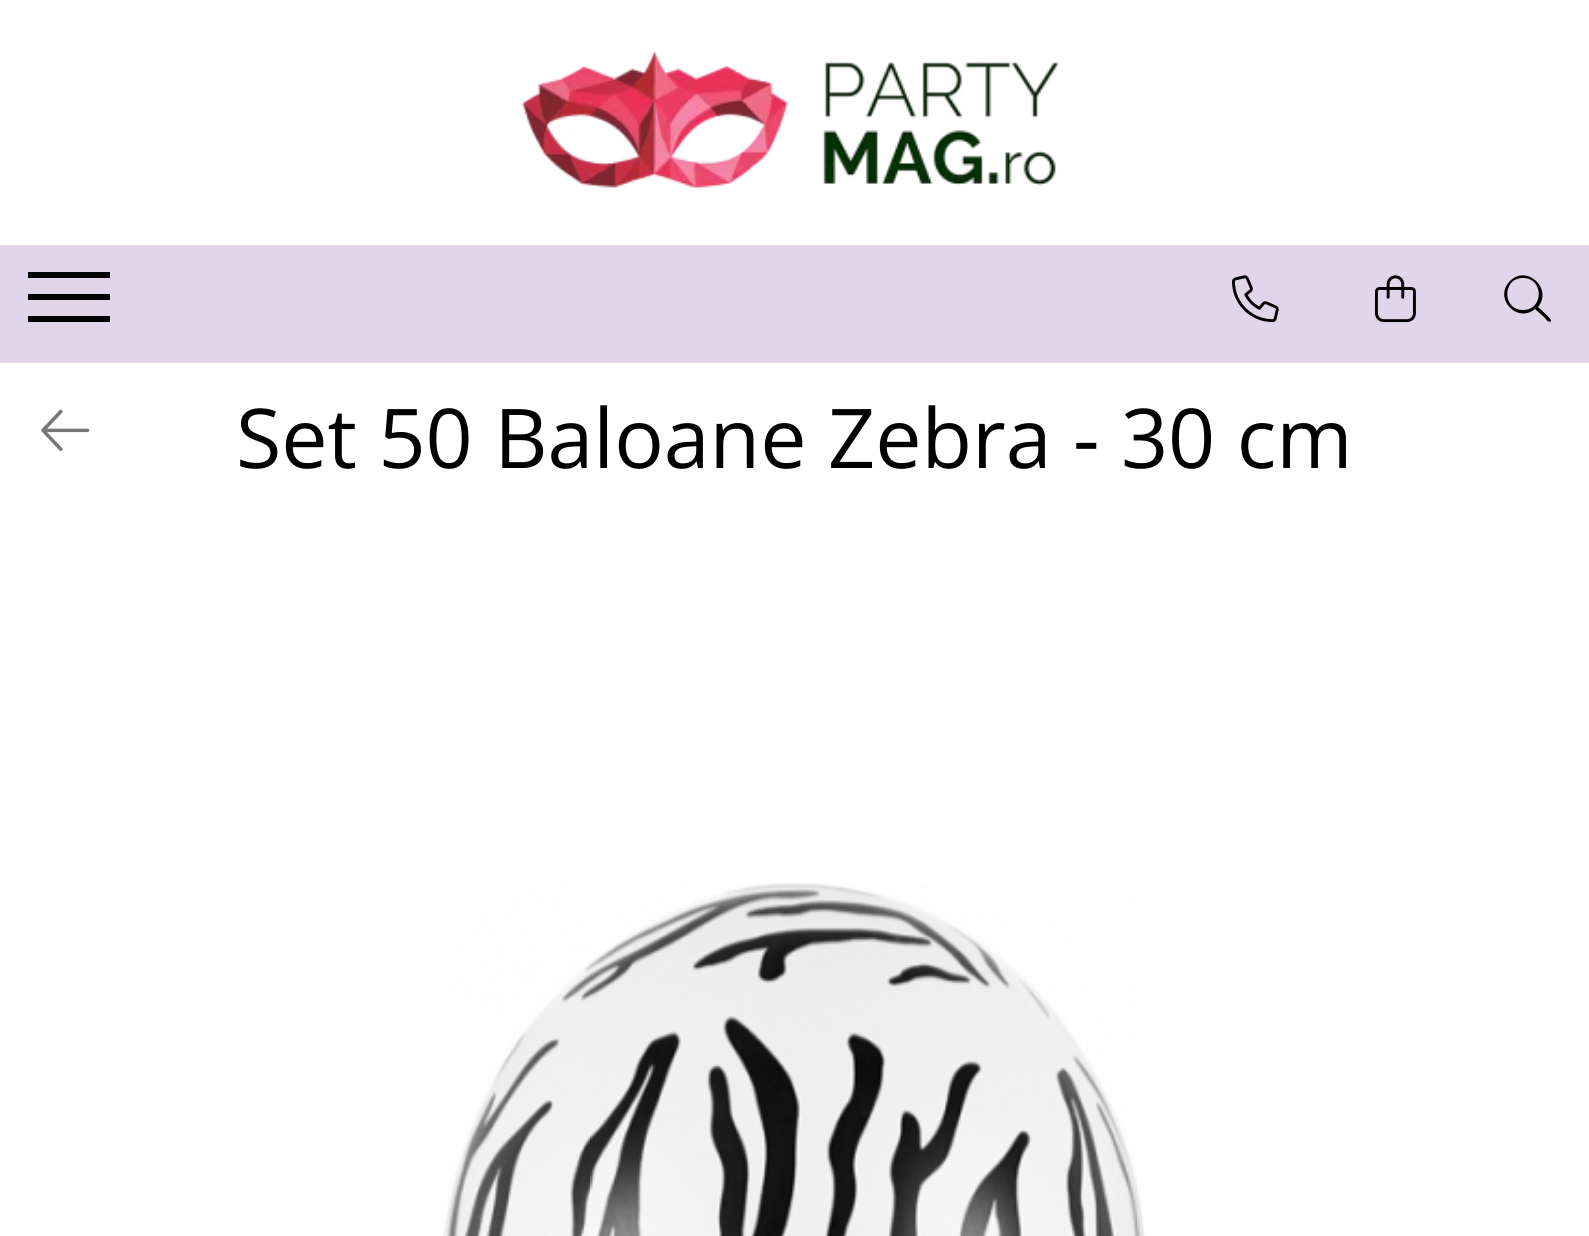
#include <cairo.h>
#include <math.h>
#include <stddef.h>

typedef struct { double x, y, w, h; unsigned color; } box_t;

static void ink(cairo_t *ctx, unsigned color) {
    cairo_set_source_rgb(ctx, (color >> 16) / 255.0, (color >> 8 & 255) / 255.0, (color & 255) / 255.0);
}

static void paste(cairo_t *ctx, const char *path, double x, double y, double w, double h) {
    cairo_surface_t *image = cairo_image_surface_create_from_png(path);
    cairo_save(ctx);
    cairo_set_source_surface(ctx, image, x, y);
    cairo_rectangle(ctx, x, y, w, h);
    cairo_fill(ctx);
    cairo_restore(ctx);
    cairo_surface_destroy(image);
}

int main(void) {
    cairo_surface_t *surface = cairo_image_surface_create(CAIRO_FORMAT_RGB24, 1589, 1236);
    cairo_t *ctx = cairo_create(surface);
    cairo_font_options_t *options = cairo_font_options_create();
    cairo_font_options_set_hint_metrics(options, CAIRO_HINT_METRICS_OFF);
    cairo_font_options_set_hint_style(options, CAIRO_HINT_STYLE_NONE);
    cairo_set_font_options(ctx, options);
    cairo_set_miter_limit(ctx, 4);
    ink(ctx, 0xFFFFFF);
    cairo_paint(ctx);
    paste(ctx, "media/1.png", 521, 50, 539, 140);
    {
        static const box_t items[] = {
            {0, 245, 1589, 118, 0xE1D5E9},
            {28, 294, 82, 6, 0x000000},
            {28, 272, 82, 6, 0x000000},
            {28, 316, 82, 6, 0x000000},
        };
        for (size_t i = 0; i < sizeof items / sizeof *items; i++) {
            ink(ctx, items[i].color);
            cairo_rectangle(ctx, items[i].x, items[i].y, items[i].w, items[i].h);
            cairo_fill(ctx);
        }
    }
    paste(ctx, "media/2.png", 1232, 275, 47, 48);
    paste(ctx, "media/3.png", 1375, 275, 41, 48);
    cairo_new_path(ctx);
    cairo_move_to(ctx, 1538, 307);
    cairo_curve_to(ctx, 1553, 289, 1527, 264, 1510, 281);
    cairo_curve_to(ctx, 1493, 298, 1517, 324, 1535, 309);
    cairo_line_to(ctx, 1544, 317);
    cairo_curve_to(ctx, 1545, 318, 1549, 324, 1551, 321);
    cairo_curve_to(ctx, 1552, 319, 1540, 309, 1538, 307);
    cairo_close_path(ctx);
    cairo_move_to(ctx, 1523, 310);
    cairo_curve_to(ctx, 1502, 310, 1502, 278, 1523, 278);
    cairo_curve_to(ctx, 1544, 278, 1544, 310, 1523, 310);
    cairo_close_path(ctx);
    cairo_fill(ctx);
    paste(ctx, "media/4.png", 41, 409, 49, 42);
    cairo_select_font_face(ctx, "Open Sans", CAIRO_FONT_SLANT_NORMAL, CAIRO_FONT_WEIGHT_NORMAL);
    cairo_set_font_size(ctx, 82.5);
    cairo_move_to(ctx, 236, 468);
    cairo_show_text(ctx, "Set 50 Baloane Zebra - 30 cm");
    paste(ctx, "media/5.png", 443, 883, 702, 353);
    cairo_surface_write_to_png(surface, "image.png");
    cairo_font_options_destroy(options);
    cairo_destroy(ctx);
    cairo_surface_destroy(surface);
    return 0;
}
